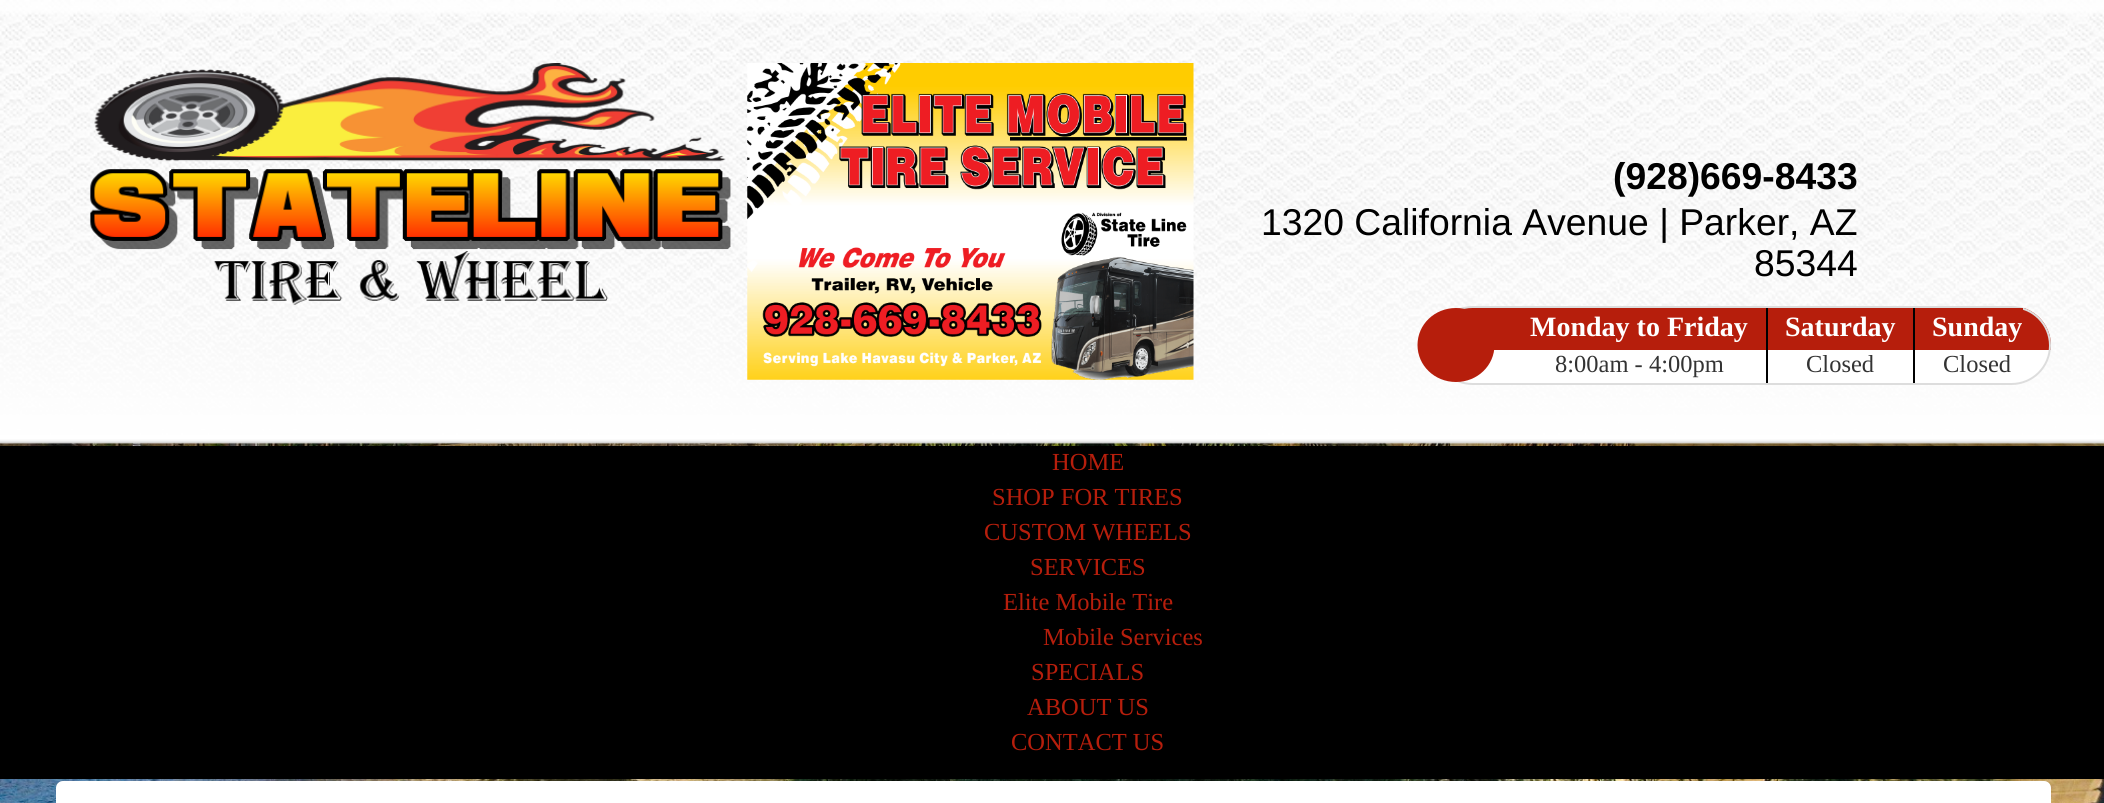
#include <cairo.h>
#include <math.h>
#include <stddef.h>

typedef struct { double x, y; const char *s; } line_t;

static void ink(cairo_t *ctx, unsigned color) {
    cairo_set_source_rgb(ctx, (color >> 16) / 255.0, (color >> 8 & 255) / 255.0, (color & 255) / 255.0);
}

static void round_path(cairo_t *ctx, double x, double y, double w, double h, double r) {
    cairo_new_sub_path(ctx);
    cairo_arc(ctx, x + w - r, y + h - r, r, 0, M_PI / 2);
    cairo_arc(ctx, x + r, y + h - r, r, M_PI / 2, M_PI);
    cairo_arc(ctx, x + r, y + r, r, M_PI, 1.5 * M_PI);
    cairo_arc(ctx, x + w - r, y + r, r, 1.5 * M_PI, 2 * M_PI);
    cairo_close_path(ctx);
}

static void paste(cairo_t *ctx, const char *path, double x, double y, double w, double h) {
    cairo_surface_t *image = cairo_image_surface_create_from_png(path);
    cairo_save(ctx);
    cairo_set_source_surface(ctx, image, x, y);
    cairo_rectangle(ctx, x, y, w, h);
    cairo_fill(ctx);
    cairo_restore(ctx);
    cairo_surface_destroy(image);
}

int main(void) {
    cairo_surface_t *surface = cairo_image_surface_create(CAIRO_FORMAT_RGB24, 2104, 803);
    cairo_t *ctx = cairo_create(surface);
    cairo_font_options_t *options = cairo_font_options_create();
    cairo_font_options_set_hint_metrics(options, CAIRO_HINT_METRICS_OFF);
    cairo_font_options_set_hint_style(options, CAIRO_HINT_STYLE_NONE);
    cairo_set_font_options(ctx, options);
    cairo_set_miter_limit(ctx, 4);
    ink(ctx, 0xFFFFFF);
    cairo_paint(ctx);
    paste(ctx, "media/4.png", 0, 442, 2104, 361);
    paste(ctx, "media/1.png", 0, 0, 2104, 446);
    paste(ctx, "media/2.png", 90, 63, 641, 242);
    paste(ctx, "media/3.png", 747, 63, 447, 317);
    cairo_select_font_face(ctx, "Liberation Sans", CAIRO_FONT_SLANT_NORMAL, CAIRO_FONT_WEIGHT_BOLD);
    cairo_set_font_size(ctx, 37.3);
    ink(ctx, 0x000000);
    cairo_move_to(ctx, 1613, 189);
    cairo_show_text(ctx, "(928)669-8433");
    cairo_select_font_face(ctx, "Liberation Sans", CAIRO_FONT_SLANT_NORMAL, CAIRO_FONT_WEIGHT_NORMAL);
    cairo_move_to(ctx, 1261, 235);
    cairo_show_text(ctx, "1320 California Avenue | Parker, AZ");
    cairo_move_to(ctx, 1754, 276);
    cairo_show_text(ctx, "85344");
    cairo_save(ctx);
    round_path(ctx, 1433, 306, 618, 79, 39.5);
    cairo_clip(ctx);
    ink(ctx, 0xB61E0C);
    cairo_rectangle(ctx, 1457, 308, 594, 42);
    cairo_fill(ctx);
    ink(ctx, 0xFFFFFF);
    cairo_rectangle(ctx, 1455, 350, 596, 33);
    cairo_fill(ctx);
    cairo_restore(ctx);
    round_path(ctx, 1434, 307, 616, 77, 38.5);
    ink(ctx, 0xDDDDDD);
    cairo_stroke(ctx);
    ink(ctx, 0xB61E0C);
    cairo_new_path(ctx);
    cairo_move_to(ctx, 1456, 308);
    cairo_curve_to(ctx, 1477.5, 308, 1494.5, 324.5, 1494.5, 345);
    cairo_curve_to(ctx, 1494.5, 365.5, 1477.5, 382, 1456, 382);
    cairo_curve_to(ctx, 1434.5, 382, 1417.5, 365.5, 1417.5, 345);
    cairo_curve_to(ctx, 1417.5, 324.5, 1434.5, 308, 1456, 308);
    cairo_close_path(ctx);
    cairo_fill(ctx);
    ink(ctx, 0x000000);
    cairo_rectangle(ctx, 1766, 308, 2, 75);
    cairo_fill(ctx);
    cairo_select_font_face(ctx, "Liberation Serif", CAIRO_FONT_SLANT_NORMAL, CAIRO_FONT_WEIGHT_BOLD);
    cairo_set_font_size(ctx, 28);
    ink(ctx, 0xFFFFFF);
    cairo_move_to(ctx, 1530, 336);
    cairo_show_text(ctx, "Monday to Friday");
    cairo_select_font_face(ctx, "Liberation Serif", CAIRO_FONT_SLANT_NORMAL, CAIRO_FONT_WEIGHT_NORMAL);
    cairo_set_font_size(ctx, 24.5);
    ink(ctx, 0x333333);
    cairo_move_to(ctx, 1555, 372);
    cairo_show_text(ctx, "8:00am - 4:00pm");
    ink(ctx, 0x000000);
    cairo_rectangle(ctx, 1913, 308, 2, 75);
    cairo_fill(ctx);
    cairo_select_font_face(ctx, "Liberation Serif", CAIRO_FONT_SLANT_NORMAL, CAIRO_FONT_WEIGHT_BOLD);
    cairo_set_font_size(ctx, 28);
    ink(ctx, 0xFFFFFF);
    cairo_move_to(ctx, 1785, 336);
    cairo_show_text(ctx, "Saturday");
    cairo_select_font_face(ctx, "Liberation Serif", CAIRO_FONT_SLANT_NORMAL, CAIRO_FONT_WEIGHT_NORMAL);
    cairo_set_font_size(ctx, 24.5);
    ink(ctx, 0x333333);
    cairo_move_to(ctx, 1806, 372);
    cairo_show_text(ctx, "Closed");
    ink(ctx, 0xB61E0C);
    cairo_rectangle(ctx, 2012, 308, 11, 2);
    cairo_fill(ctx);
    cairo_select_font_face(ctx, "Liberation Serif", CAIRO_FONT_SLANT_NORMAL, CAIRO_FONT_WEIGHT_BOLD);
    cairo_set_font_size(ctx, 28);
    ink(ctx, 0xFFFFFF);
    cairo_move_to(ctx, 1932, 336);
    cairo_show_text(ctx, "Sunday");
    cairo_select_font_face(ctx, "Liberation Serif", CAIRO_FONT_SLANT_NORMAL, CAIRO_FONT_WEIGHT_NORMAL);
    cairo_set_font_size(ctx, 24.5);
    ink(ctx, 0x333333);
    cairo_move_to(ctx, 1943, 372);
    cairo_show_text(ctx, "Closed");
    ink(ctx, 0x000000);
    cairo_rectangle(ctx, 0, 446, 2104, 333);
    cairo_fill(ctx);
    ink(ctx, 0xB61E0C);
    {
        static const line_t items[] = {
            {1052, 470, "HOME"},
            {992, 505, "SHOP FOR TIRES"},
            {984, 540, "CUSTOM WHEELS"},
            {1030, 575, "SERVICES"},
            {1003, 610, "Elite Mobile Tire"},
            {1043, 645, "Mobile Services"},
            {1031, 680, "SPECIALS"},
            {1027, 715, "ABOUT US"},
            {1011, 750, "CONTACT US"},
        };
        for (size_t i = 0; i < sizeof items / sizeof *items; i++) {
            cairo_move_to(ctx, items[i].x, items[i].y);
            cairo_show_text(ctx, items[i].s);
        }
    }
    ink(ctx, 0xFFFFFF);
    round_path(ctx, 56, 781, 1995, 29, 7);
    cairo_fill(ctx);
    cairo_surface_write_to_png(surface, "image.png");
    cairo_font_options_destroy(options);
    cairo_destroy(ctx);
    cairo_surface_destroy(surface);
    return 0;
}
